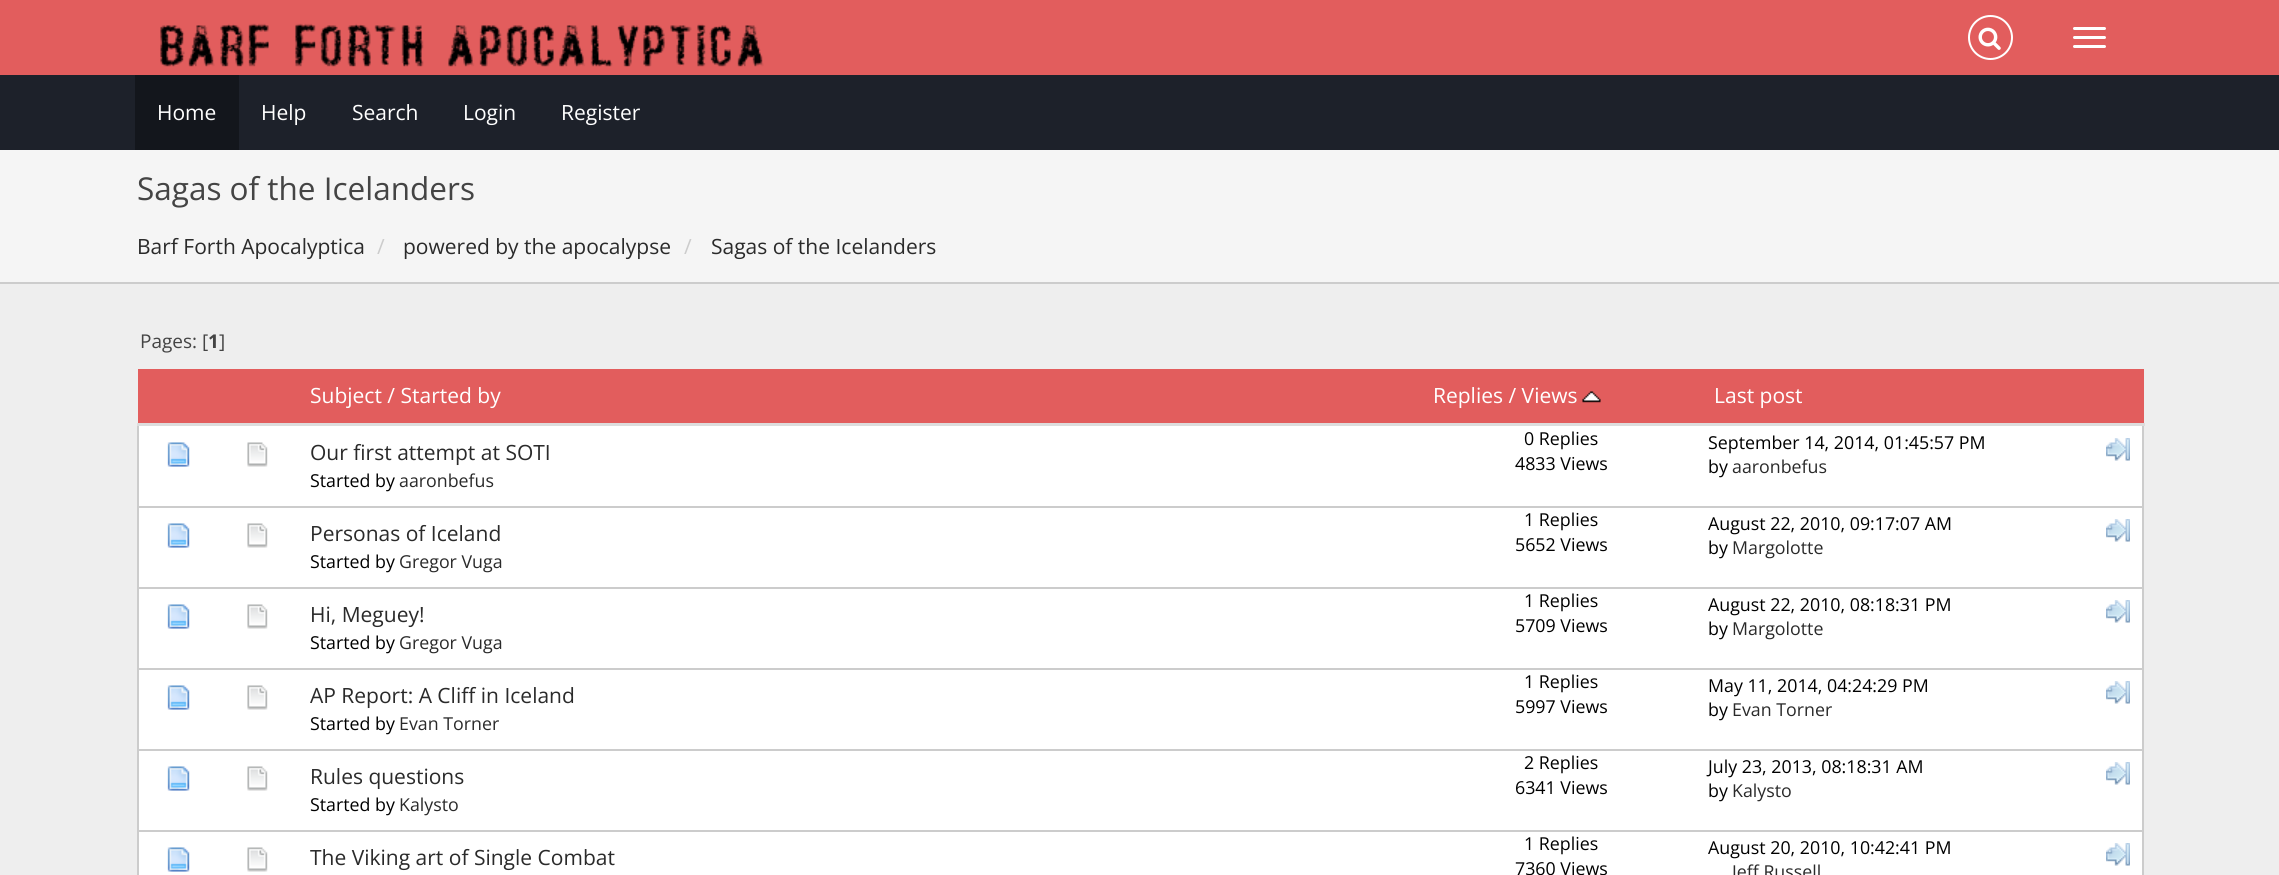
#include <cairo.h>
#include <math.h>
#include <stddef.h>

typedef struct { double x, y; const char *s; } line_t;
typedef struct { double x, y, w, h; unsigned color; } box_t;

static void ink(cairo_t *ctx, unsigned color) {
    cairo_set_source_rgb(ctx, (color >> 16) / 255.0, (color >> 8 & 255) / 255.0, (color & 255) / 255.0);
}

static void round_path(cairo_t *ctx, double x, double y, double w, double h, double r) {
    cairo_new_sub_path(ctx);
    cairo_arc(ctx, x + w - r, y + h - r, r, 0, M_PI / 2);
    cairo_arc(ctx, x + r, y + h - r, r, M_PI / 2, M_PI);
    cairo_arc(ctx, x + r, y + r, r, M_PI, 1.5 * M_PI);
    cairo_arc(ctx, x + w - r, y + r, r, 1.5 * M_PI, 2 * M_PI);
    cairo_close_path(ctx);
}

static void paste(cairo_t *ctx, const char *path, double x, double y, double w, double h) {
    cairo_surface_t *image = cairo_image_surface_create_from_png(path);
    cairo_save(ctx);
    cairo_set_source_surface(ctx, image, x, y);
    cairo_rectangle(ctx, x, y, w, h);
    cairo_fill(ctx);
    cairo_restore(ctx);
    cairo_surface_destroy(image);
}

int main(void) {
    cairo_surface_t *surface = cairo_image_surface_create(CAIRO_FORMAT_RGB24, 2279, 875);
    cairo_t *ctx = cairo_create(surface);
    cairo_font_options_t *options = cairo_font_options_create();
    cairo_font_options_set_hint_metrics(options, CAIRO_HINT_METRICS_OFF);
    cairo_font_options_set_hint_style(options, CAIRO_HINT_STYLE_NONE);
    cairo_set_font_options(ctx, options);
    cairo_set_miter_limit(ctx, 4);
    ink(ctx, 0xEEEEEE);
    cairo_paint(ctx);
    ink(ctx, 0xE25D5D);
    cairo_rectangle(ctx, 0, 0, 2279, 75);
    cairo_fill(ctx);
    paste(ctx, "media/1.png", 160, 23, 604, 44);
    cairo_arc(ctx, 1990.5, 37.5, 21.5, 0, 2 * M_PI);
    ink(ctx, 0xFFFFFF);
    cairo_stroke(ctx);
    paste(ctx, "media/2.png", 1978, 27, 23, 23);
    round_path(ctx, 2073, 27, 33, 3, 1.5);
    cairo_fill(ctx);
    round_path(ctx, 2073, 36, 33, 3, 1.5);
    cairo_fill(ctx);
    round_path(ctx, 2073, 45, 33, 3, 1.5);
    cairo_fill(ctx);
    ink(ctx, 0x1D212A);
    cairo_rectangle(ctx, 0, 75, 2279, 75);
    cairo_fill(ctx);
    ink(ctx, 0x13161C);
    cairo_rectangle(ctx, 135, 75, 104, 75);
    cairo_fill(ctx);
    cairo_select_font_face(ctx, "Open Sans", CAIRO_FONT_SLANT_NORMAL, CAIRO_FONT_WEIGHT_NORMAL);
    cairo_set_font_size(ctx, 21);
    ink(ctx, 0xFFFFFF);
    {
        static const line_t items[] = {
            {157, 120, "Home"},
            {261, 120, "Help"},
            {352, 120, "Search"},
            {463, 120, "Login"},
            {561, 120, "Register"},
        };
        for (size_t i = 0; i < sizeof items / sizeof *items; i++) {
            cairo_move_to(ctx, items[i].x, items[i].y);
            cairo_show_text(ctx, items[i].s);
        }
    }
    ink(ctx, 0xF5F5F5);
    cairo_rectangle(ctx, 0, 150, 2279, 132);
    cairo_fill(ctx);
    ink(ctx, 0xCCCCCC);
    cairo_rectangle(ctx, 0, 282, 2279, 2);
    cairo_fill(ctx);
    cairo_set_font_size(ctx, 31.5);
    ink(ctx, 0x444444);
    cairo_move_to(ctx, 137, 200);
    cairo_show_text(ctx, "Sagas of the Icelanders");
    cairo_set_font_size(ctx, 21);
    ink(ctx, 0x2A2A2A);
    cairo_move_to(ctx, 137, 254);
    cairo_show_text(ctx, "Barf Forth Apocalyptica");
    ink(ctx, 0xCCCCCC);
    cairo_move_to(ctx, 377, 254);
    cairo_show_text(ctx, "/");
    ink(ctx, 0x2A2A2A);
    cairo_move_to(ctx, 403, 254);
    cairo_show_text(ctx, "powered by the apocalypse");
    ink(ctx, 0xCCCCCC);
    cairo_move_to(ctx, 684, 254);
    cairo_show_text(ctx, "/");
    ink(ctx, 0x2A2A2A);
    cairo_move_to(ctx, 711, 254);
    cairo_show_text(ctx, "Sagas of the Icelanders");
    cairo_set_font_size(ctx, 19);
    ink(ctx, 0x444444);
    cairo_move_to(ctx, 140, 348);
    cairo_show_text(ctx, "Pages: [");
    cairo_select_font_face(ctx, "Open Sans", CAIRO_FONT_SLANT_NORMAL, CAIRO_FONT_WEIGHT_BOLD);
    cairo_move_to(ctx, 208, 348);
    cairo_show_text(ctx, "1");
    cairo_select_font_face(ctx, "Open Sans", CAIRO_FONT_SLANT_NORMAL, CAIRO_FONT_WEIGHT_NORMAL);
    cairo_move_to(ctx, 219, 348);
    cairo_show_text(ctx, "]");
    ink(ctx, 0xE25D5D);
    cairo_rectangle(ctx, 138, 369, 2006, 54);
    cairo_fill(ctx);
    cairo_set_font_size(ctx, 21);
    ink(ctx, 0xFFFFFF);
    cairo_move_to(ctx, 310, 403);
    cairo_show_text(ctx, "Subject / Started by");
    cairo_move_to(ctx, 1433, 403);
    cairo_show_text(ctx, "Replies / Views");
    paste(ctx, "media/3.png", 1582, 391, 19, 12);
    {
        static const box_t items[] = {
            {137, 830, 2, 45, 0xCCCCCC},
            {2142, 423, 2, 452, 0xCCCCCC},
            {137, 830, 2007, 2, 0xCCCCCC},
            {137, 749, 2, 82, 0xCCCCCC},
            {137, 749, 2007, 2, 0xCCCCCC},
            {137, 668, 2, 82, 0xCCCCCC},
            {137, 668, 2007, 2, 0xCCCCCC},
            {137, 587, 2, 82, 0xCCCCCC},
            {137, 587, 2007, 2, 0xCCCCCC},
            {137, 506, 2, 82, 0xCCCCCC},
            {137, 506, 2007, 2, 0xCCCCCC},
            {137, 423, 2, 84, 0xCCCCCC},
            {137, 423, 2008, 3, 0xDDDDDD},
        };
        for (size_t i = 0; i < sizeof items / sizeof *items; i++) {
            ink(ctx, items[i].color);
            cairo_rectangle(ctx, items[i].x, items[i].y, items[i].w, items[i].h);
            cairo_fill(ctx);
        }
    }
    ink(ctx, 0xFFFFFF);
    cairo_move_to(ctx, 1714, 403);
    cairo_show_text(ctx, "Last post");
    cairo_rectangle(ctx, 139, 426, 2003, 80);
    cairo_fill(ctx);
    paste(ctx, "media/4.png", 167, 442, 23, 25);
    paste(ctx, "media/5.png", 247, 442, 21, 25);
    ink(ctx, 0x2A2A2A);
    cairo_move_to(ctx, 310, 460);
    cairo_show_text(ctx, "Our first attempt at SOTI");
    cairo_set_font_size(ctx, 17.8);
    ink(ctx, 0x000000);
    cairo_move_to(ctx, 310, 487);
    cairo_show_text(ctx, "Started by");
    ink(ctx, 0x2A2A2A);
    cairo_move_to(ctx, 399, 487);
    cairo_show_text(ctx, "aaronbefus");
    ink(ctx, 0x000000);
    {
        static const line_t items[] = {
            {1524, 445, "0 Replies"},
            {1515, 470, "4833 Views"},
            {1708, 449, "September 14, 2014, 01:45:57 PM"},
        };
        for (size_t i = 0; i < sizeof items / sizeof *items; i++) {
            cairo_move_to(ctx, items[i].x, items[i].y);
            cairo_show_text(ctx, items[i].s);
        }
    }
    paste(ctx, "media/6.png", 2106, 438, 24, 23);
    cairo_move_to(ctx, 1708, 473);
    cairo_show_text(ctx, "by");
    ink(ctx, 0x2A2A2A);
    cairo_move_to(ctx, 1732, 473);
    cairo_show_text(ctx, "aaronbefus");
    ink(ctx, 0xFFFFFF);
    cairo_rectangle(ctx, 139, 508, 2003, 79);
    cairo_fill(ctx);
    paste(ctx, "media/4.png", 167, 523, 23, 25);
    paste(ctx, "media/5.png", 247, 523, 21, 25);
    cairo_set_font_size(ctx, 21);
    ink(ctx, 0x2A2A2A);
    cairo_move_to(ctx, 310, 541);
    cairo_show_text(ctx, "Personas of Iceland");
    cairo_set_font_size(ctx, 17.8);
    ink(ctx, 0x000000);
    cairo_move_to(ctx, 310, 568);
    cairo_show_text(ctx, "Started by");
    ink(ctx, 0x2A2A2A);
    cairo_move_to(ctx, 399, 568);
    cairo_show_text(ctx, "Gregor Vuga");
    ink(ctx, 0x000000);
    {
        static const line_t items[] = {
            {1524, 526, "1 Replies"},
            {1515, 551, "5652 Views"},
            {1708, 530, "August 22, 2010, 09:17:07 AM"},
        };
        for (size_t i = 0; i < sizeof items / sizeof *items; i++) {
            cairo_move_to(ctx, items[i].x, items[i].y);
            cairo_show_text(ctx, items[i].s);
        }
    }
    paste(ctx, "media/6.png", 2106, 519, 24, 23);
    cairo_move_to(ctx, 1708, 554);
    cairo_show_text(ctx, "by");
    ink(ctx, 0x2A2A2A);
    cairo_move_to(ctx, 1732, 554);
    cairo_show_text(ctx, "Margolotte");
    ink(ctx, 0xFFFFFF);
    cairo_rectangle(ctx, 139, 589, 2003, 79);
    cairo_fill(ctx);
    paste(ctx, "media/4.png", 167, 604, 23, 25);
    paste(ctx, "media/5.png", 247, 604, 21, 25);
    cairo_set_font_size(ctx, 21);
    ink(ctx, 0x2A2A2A);
    cairo_move_to(ctx, 310, 622);
    cairo_show_text(ctx, "Hi, Meguey!");
    cairo_set_font_size(ctx, 17.8);
    ink(ctx, 0x000000);
    cairo_move_to(ctx, 310, 649);
    cairo_show_text(ctx, "Started by");
    ink(ctx, 0x2A2A2A);
    cairo_move_to(ctx, 399, 649);
    cairo_show_text(ctx, "Gregor Vuga");
    ink(ctx, 0x000000);
    {
        static const line_t items[] = {
            {1524, 607, "1 Replies"},
            {1515, 632, "5709 Views"},
            {1708, 611, "August 22, 2010, 08:18:31 PM"},
        };
        for (size_t i = 0; i < sizeof items / sizeof *items; i++) {
            cairo_move_to(ctx, items[i].x, items[i].y);
            cairo_show_text(ctx, items[i].s);
        }
    }
    paste(ctx, "media/6.png", 2106, 600, 24, 23);
    cairo_move_to(ctx, 1708, 635);
    cairo_show_text(ctx, "by");
    ink(ctx, 0x2A2A2A);
    cairo_move_to(ctx, 1732, 635);
    cairo_show_text(ctx, "Margolotte");
    ink(ctx, 0xFFFFFF);
    cairo_rectangle(ctx, 139, 670, 2003, 79);
    cairo_fill(ctx);
    paste(ctx, "media/4.png", 167, 685, 23, 25);
    paste(ctx, "media/5.png", 247, 685, 21, 25);
    cairo_set_font_size(ctx, 21);
    ink(ctx, 0x2A2A2A);
    cairo_move_to(ctx, 310, 703);
    cairo_show_text(ctx, "AP Report: A Cliff in Iceland");
    cairo_set_font_size(ctx, 17.8);
    ink(ctx, 0x000000);
    cairo_move_to(ctx, 310, 730);
    cairo_show_text(ctx, "Started by");
    ink(ctx, 0x2A2A2A);
    cairo_move_to(ctx, 399, 730);
    cairo_show_text(ctx, "Evan Torner");
    ink(ctx, 0x000000);
    {
        static const line_t items[] = {
            {1524, 688, "1 Replies"},
            {1515, 713, "5997 Views"},
            {1708, 692, "May 11, 2014, 04:24:29 PM"},
        };
        for (size_t i = 0; i < sizeof items / sizeof *items; i++) {
            cairo_move_to(ctx, items[i].x, items[i].y);
            cairo_show_text(ctx, items[i].s);
        }
    }
    paste(ctx, "media/6.png", 2106, 681, 24, 23);
    cairo_move_to(ctx, 1708, 716);
    cairo_show_text(ctx, "by");
    ink(ctx, 0x2A2A2A);
    cairo_move_to(ctx, 1732, 716);
    cairo_show_text(ctx, "Evan Torner");
    ink(ctx, 0xFFFFFF);
    cairo_rectangle(ctx, 139, 751, 2003, 79);
    cairo_fill(ctx);
    paste(ctx, "media/4.png", 167, 766, 23, 25);
    paste(ctx, "media/5.png", 247, 766, 21, 25);
    cairo_set_font_size(ctx, 21);
    ink(ctx, 0x2A2A2A);
    cairo_move_to(ctx, 310, 784);
    cairo_show_text(ctx, "Rules questions");
    cairo_set_font_size(ctx, 17.8);
    ink(ctx, 0x000000);
    cairo_move_to(ctx, 310, 811);
    cairo_show_text(ctx, "Started by");
    ink(ctx, 0x2A2A2A);
    cairo_move_to(ctx, 399, 811);
    cairo_show_text(ctx, "Kalysto");
    ink(ctx, 0x000000);
    {
        static const line_t items[] = {
            {1524, 769, "2 Replies"},
            {1515, 794, "6341 Views"},
            {1708, 773, "July 23, 2013, 08:18:31 AM"},
        };
        for (size_t i = 0; i < sizeof items / sizeof *items; i++) {
            cairo_move_to(ctx, items[i].x, items[i].y);
            cairo_show_text(ctx, items[i].s);
        }
    }
    paste(ctx, "media/6.png", 2106, 762, 24, 23);
    cairo_move_to(ctx, 1708, 797);
    cairo_show_text(ctx, "by");
    ink(ctx, 0x2A2A2A);
    cairo_move_to(ctx, 1732, 797);
    cairo_show_text(ctx, "Kalysto");
    ink(ctx, 0xFFFFFF);
    cairo_rectangle(ctx, 139, 832, 2003, 43);
    cairo_fill(ctx);
    paste(ctx, "media/4.png", 167, 847, 23, 25);
    paste(ctx, "media/5.png", 247, 847, 21, 25);
    cairo_set_font_size(ctx, 21);
    ink(ctx, 0x2A2A2A);
    cairo_move_to(ctx, 310, 865);
    cairo_show_text(ctx, "The Viking art of Single Combat");
    cairo_set_font_size(ctx, 17.8);
    ink(ctx, 0x000000);
    {
        static const line_t items[] = {
            {1524, 850, "1 Replies"},
            {1515, 875, "7360 Views"},
            {1708, 854, "August 20, 2010, 10:42:41 PM"},
        };
        for (size_t i = 0; i < sizeof items / sizeof *items; i++) {
            cairo_move_to(ctx, items[i].x, items[i].y);
            cairo_show_text(ctx, items[i].s);
        }
    }
    paste(ctx, "media/6.png", 2106, 843, 24, 23);
    ink(ctx, 0x2A2A2A);
    cairo_move_to(ctx, 1732, 878);
    cairo_show_text(ctx, "Jeff Russell");
    cairo_surface_write_to_png(surface, "image.png");
    cairo_font_options_destroy(options);
    cairo_destroy(ctx);
    cairo_surface_destroy(surface);
    return 0;
}
